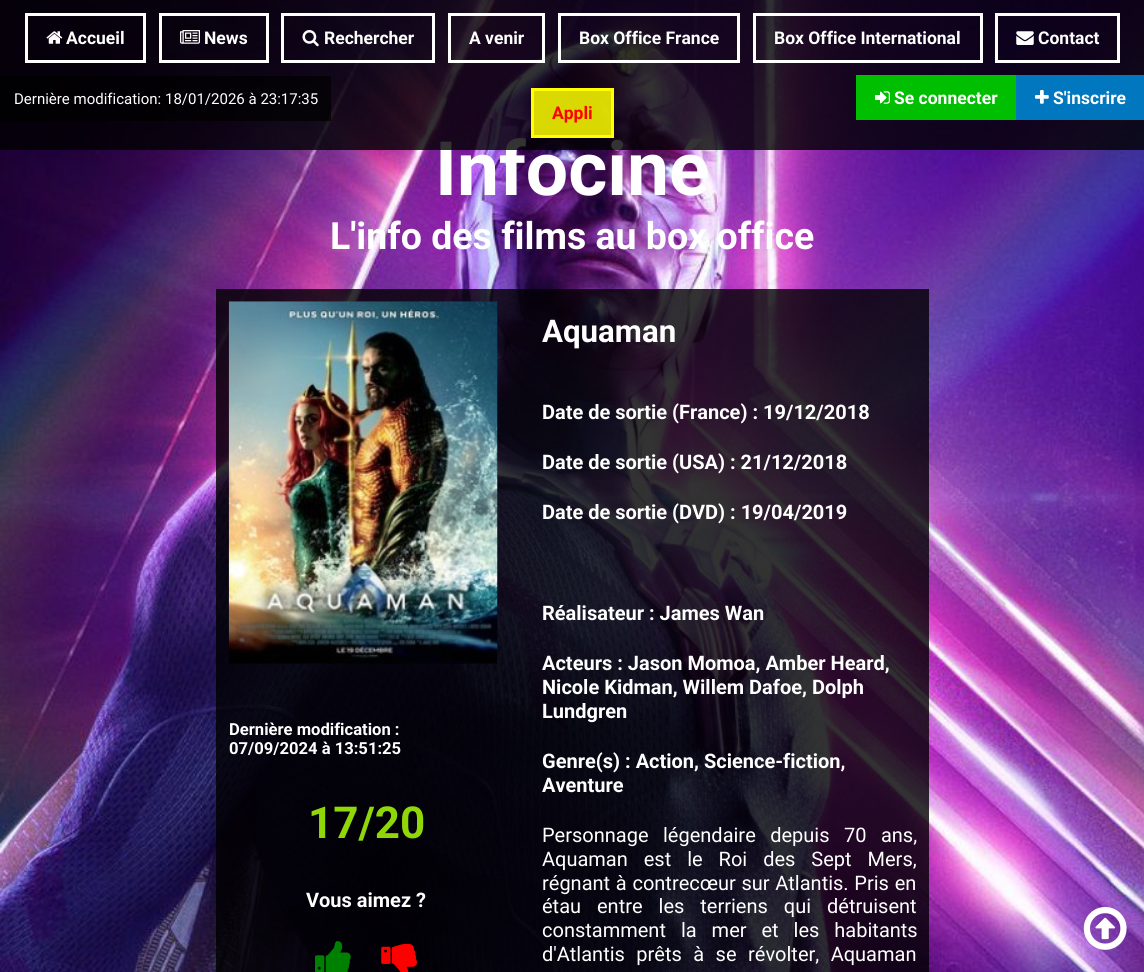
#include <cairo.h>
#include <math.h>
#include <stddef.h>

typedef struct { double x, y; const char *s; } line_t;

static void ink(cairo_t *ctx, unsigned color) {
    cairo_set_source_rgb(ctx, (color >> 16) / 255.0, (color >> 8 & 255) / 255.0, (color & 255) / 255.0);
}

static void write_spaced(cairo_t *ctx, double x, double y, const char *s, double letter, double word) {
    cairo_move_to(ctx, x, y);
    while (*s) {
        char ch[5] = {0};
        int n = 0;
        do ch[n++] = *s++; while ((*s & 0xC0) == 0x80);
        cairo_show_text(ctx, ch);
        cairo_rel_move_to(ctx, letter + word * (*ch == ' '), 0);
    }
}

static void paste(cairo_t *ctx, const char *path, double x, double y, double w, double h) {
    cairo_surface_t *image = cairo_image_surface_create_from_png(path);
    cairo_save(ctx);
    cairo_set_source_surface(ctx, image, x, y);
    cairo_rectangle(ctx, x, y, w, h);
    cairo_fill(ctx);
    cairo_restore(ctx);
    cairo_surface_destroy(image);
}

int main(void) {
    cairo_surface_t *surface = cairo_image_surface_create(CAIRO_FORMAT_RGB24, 1144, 972);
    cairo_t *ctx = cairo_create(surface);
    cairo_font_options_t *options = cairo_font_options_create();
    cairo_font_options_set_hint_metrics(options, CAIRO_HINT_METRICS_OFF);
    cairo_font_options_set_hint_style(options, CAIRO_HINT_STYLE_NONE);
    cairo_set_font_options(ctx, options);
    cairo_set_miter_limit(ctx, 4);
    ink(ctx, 0xFFFFFF);
    cairo_paint(ctx);
    paste(ctx, "media/1.png", 0, 0, 1144, 972);
    cairo_select_font_face(ctx, "Roboto", CAIRO_FONT_SLANT_NORMAL, CAIRO_FONT_WEIGHT_BOLD);
    cairo_set_font_size(ctx, 75);
    ink(ctx, 0xFFFFFF);
    cairo_move_to(ctx, 435, 195);
    cairo_show_text(ctx, "Infociné");
    cairo_set_source_rgba(ctx, 0, 0, 0, 0.8);
    cairo_rectangle(ctx, 0, 0, 1144, 150);
    cairo_fill(ctx);
    cairo_rectangle(ctx, 26.5, 14.5, 118, 47);
    ink(ctx, 0xFFFFFF);
    cairo_set_line_width(ctx, 3);
    cairo_stroke(ctx);
    paste(ctx, "media/2.png", 46, 31, 17, 13);
    cairo_set_font_size(ctx, 17.5);
    cairo_move_to(ctx, 66, 44);
    cairo_show_text(ctx, "Accueil");
    cairo_rectangle(ctx, 160.5, 14.5, 107, 47);
    cairo_stroke(ctx);
    paste(ctx, "media/3.png", 180, 30, 20, 14);
    cairo_move_to(ctx, 204, 44);
    cairo_show_text(ctx, "News");
    cairo_rectangle(ctx, 282.5, 14.5, 151, 47);
    cairo_stroke(ctx);
    paste(ctx, "media/4.png", 302, 30, 17, 17);
    cairo_move_to(ctx, 324, 44);
    cairo_show_text(ctx, "Rechercher");
    cairo_rectangle(ctx, 449.5, 14.5, 94, 47);
    cairo_stroke(ctx);
    cairo_move_to(ctx, 469, 44);
    cairo_show_text(ctx, "A venir");
    cairo_rectangle(ctx, 559.5, 14.5, 179, 47);
    cairo_stroke(ctx);
    cairo_move_to(ctx, 579, 44);
    cairo_show_text(ctx, "Box Office France");
    cairo_rectangle(ctx, 754.5, 14.5, 227, 47);
    cairo_stroke(ctx);
    cairo_move_to(ctx, 774, 44);
    cairo_show_text(ctx, "Box Office International");
    cairo_rectangle(ctx, 996.5, 14.5, 122, 47);
    cairo_stroke(ctx);
    paste(ctx, "media/5.png", 1016, 31, 18, 14);
    cairo_move_to(ctx, 1038, 44);
    cairo_show_text(ctx, "Contact");
    cairo_set_source_rgba(ctx, 0, 0, 0, 0.7);
    cairo_rectangle(ctx, 0, 76, 331, 45);
    cairo_fill(ctx);
    cairo_select_font_face(ctx, "Roboto", CAIRO_FONT_SLANT_NORMAL, CAIRO_FONT_WEIGHT_NORMAL);
    cairo_set_font_size(ctx, 15);
    ink(ctx, 0xFFFFFF);
    cairo_move_to(ctx, 14, 104);
    cairo_show_text(ctx, "Dernière modification: 18/01/2026 à 23:17:35");
    ink(ctx, 0x00BE00);
    cairo_rectangle(ctx, 856, 75, 160, 45);
    cairo_fill(ctx);
    paste(ctx, "media/6.png", 875, 91, 15, 13);
    cairo_select_font_face(ctx, "Roboto", CAIRO_FONT_SLANT_NORMAL, CAIRO_FONT_WEIGHT_BOLD);
    cairo_set_font_size(ctx, 17.5);
    ink(ctx, 0xFFFFFF);
    cairo_move_to(ctx, 894, 104);
    cairo_show_text(ctx, "Se connecter");
    ink(ctx, 0x0077BE);
    cairo_rectangle(ctx, 1016, 75, 128, 45);
    cairo_fill(ctx);
    paste(ctx, "media/7.png", 1035, 90, 14, 14);
    ink(ctx, 0xFFFFFF);
    cairo_move_to(ctx, 1053, 104);
    cairo_show_text(ctx, "S'inscrire");
    cairo_set_source_rgba(ctx, 0.941, 0.941, 0, 0.9);
    cairo_rectangle(ctx, 532.5, 89.5, 80, 47);
    cairo_fill_preserve(ctx);
    ink(ctx, 0xFFFF00);
    cairo_stroke(ctx);
    ink(ctx, 0xFF0000);
    cairo_move_to(ctx, 552, 119);
    cairo_show_text(ctx, "Appli");
    cairo_set_font_size(ctx, 37.5);
    ink(ctx, 0xFFFFFF);
    cairo_move_to(ctx, 330, 249);
    cairo_show_text(ctx, "L'info des films au box office");
    cairo_set_source_rgba(ctx, 0, 0, 0, 0.8);
    cairo_rectangle(ctx, 216, 289, 713, 683);
    cairo_fill(ctx);
    paste(ctx, "media/8.png", 228, 301, 270, 363);
    cairo_set_font_size(ctx, 16.6);
    ink(ctx, 0xFFFFFF);
    cairo_move_to(ctx, 229, 735);
    cairo_show_text(ctx, "Dernière modification :");
    cairo_move_to(ctx, 229, 754);
    cairo_show_text(ctx, "07/09/2024 à 13:51:25");
    cairo_set_font_size(ctx, 44);
    ink(ctx, 0x90D708);
    cairo_move_to(ctx, 308, 838);
    cairo_show_text(ctx, "17/20");
    cairo_set_font_size(ctx, 20);
    ink(ctx, 0xFFFFFF);
    cairo_move_to(ctx, 306, 907);
    cairo_show_text(ctx, "Vous aimez ?");
    paste(ctx, "media/9.png", 315, 941, 36, 31);
    paste(ctx, "media/10.png", 381, 943, 36, 29);
    cairo_set_font_size(ctx, 31.25);
    cairo_move_to(ctx, 542, 342);
    cairo_show_text(ctx, "Aquaman");
    cairo_set_font_size(ctx, 20);
    {
        static const line_t items[] = {
            {542, 419, "Date de sortie (France) : 19/12/2018"},
            {542, 469, "Date de sortie (USA) : 21/12/2018"},
            {542, 519, "Date de sortie (DVD) : 19/04/2019"},
            {542, 620, "Réalisateur : James Wan"},
            {542, 670, "Acteurs : Jason Momoa, Amber Heard,"},
            {542, 694, "Nicole Kidman, Willem Dafoe, Dolph"},
            {542, 718, "Lundgren"},
            {542, 768, "Genre(s) : Action, Science-fiction,"},
            {542, 792, "Aventure"},
        };
        for (size_t i = 0; i < sizeof items / sizeof *items; i++) {
            cairo_move_to(ctx, items[i].x, items[i].y);
            cairo_show_text(ctx, items[i].s);
        }
    }
    cairo_select_font_face(ctx, "Roboto", CAIRO_FONT_SLANT_NORMAL, CAIRO_FONT_WEIGHT_NORMAL);
    write_spaced(ctx, 542, 842, "Personnage légendaire depuis 70 ans,", 0, 9.5);
    write_spaced(ctx, 542, 866, "Aquaman est le Roi des Sept Mers,", 0, 11);
    write_spaced(ctx, 542, 890, "régnant à contrecœur sur Atlantis. Pris en", 0, 0.75);
    write_spaced(ctx, 542, 913, "étau entre les terriens qui détruisent", 0, 11);
    write_spaced(ctx, 542, 937, "constamment la mer et les habitants", 0, 10);
    write_spaced(ctx, 542, 961, "d'Atlantis prêts à se révolter, Aquaman", 0, 6.5);
    paste(ctx, "media/11.png", 1083, 907, 44, 43);
    cairo_surface_write_to_png(surface, "image.png");
    cairo_font_options_destroy(options);
    cairo_destroy(ctx);
    cairo_surface_destroy(surface);
    return 0;
}
